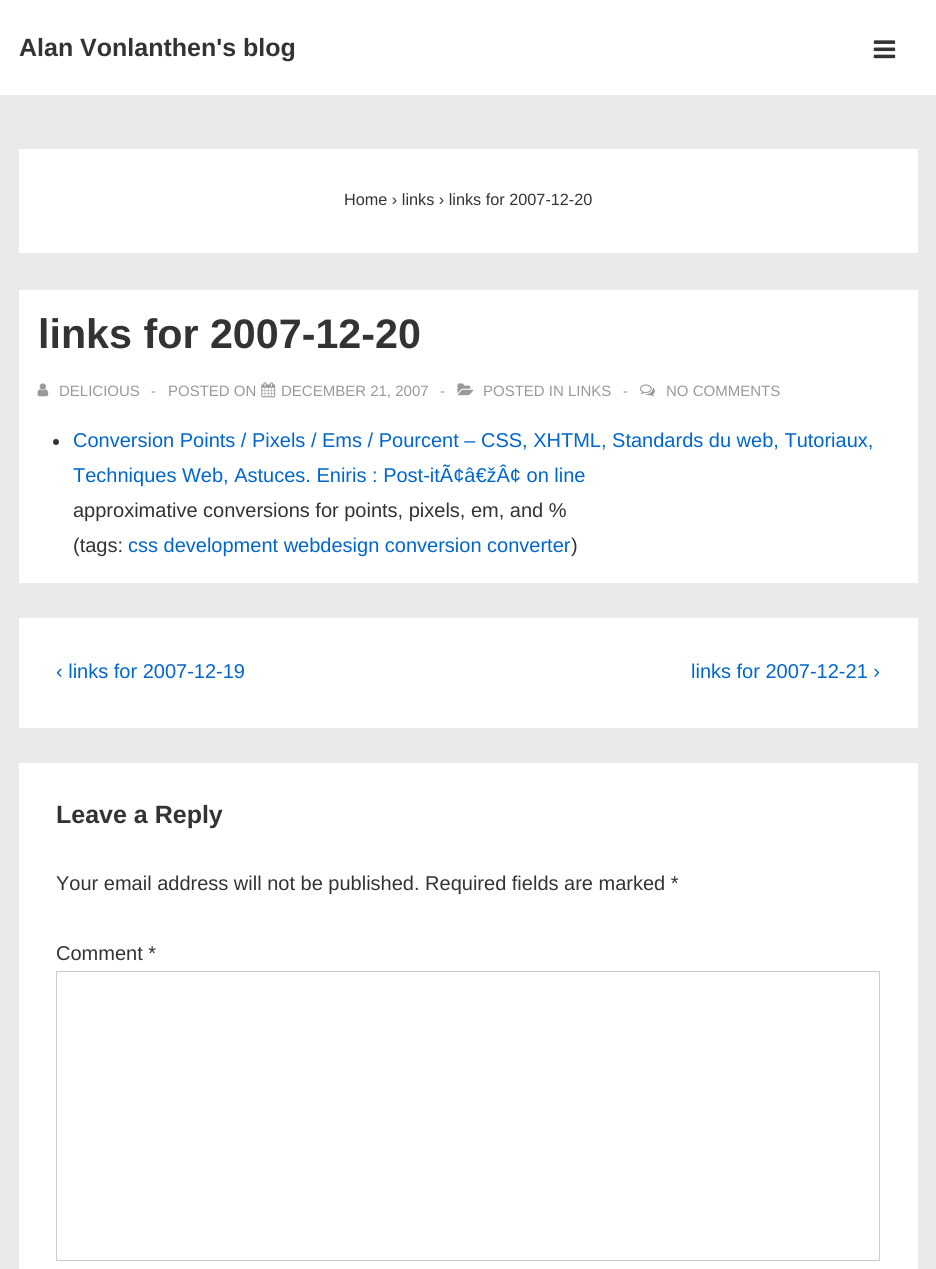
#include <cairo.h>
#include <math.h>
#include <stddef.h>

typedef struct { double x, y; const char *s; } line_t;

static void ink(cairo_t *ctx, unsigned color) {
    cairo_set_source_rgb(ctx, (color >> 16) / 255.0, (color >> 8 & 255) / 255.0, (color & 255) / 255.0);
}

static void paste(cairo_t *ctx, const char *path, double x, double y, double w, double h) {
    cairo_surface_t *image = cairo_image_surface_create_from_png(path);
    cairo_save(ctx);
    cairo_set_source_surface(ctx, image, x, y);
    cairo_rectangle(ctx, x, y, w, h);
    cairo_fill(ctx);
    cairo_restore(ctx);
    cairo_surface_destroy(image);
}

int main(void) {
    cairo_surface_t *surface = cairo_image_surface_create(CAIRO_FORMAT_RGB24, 936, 1269);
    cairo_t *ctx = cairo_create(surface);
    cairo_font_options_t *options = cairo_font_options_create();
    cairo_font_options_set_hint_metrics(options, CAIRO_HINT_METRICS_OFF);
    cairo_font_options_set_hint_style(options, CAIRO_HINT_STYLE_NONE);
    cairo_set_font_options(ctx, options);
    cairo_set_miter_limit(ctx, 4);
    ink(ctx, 0xEAEAEA);
    cairo_paint(ctx);
    ink(ctx, 0xFFFFFF);
    cairo_rectangle(ctx, 0, 0, 936, 95);
    cairo_fill(ctx);
    cairo_select_font_face(ctx, "Liberation Sans", CAIRO_FONT_SLANT_NORMAL, CAIRO_FONT_WEIGHT_BOLD);
    cairo_set_font_size(ctx, 25);
    ink(ctx, 0x333333);
    cairo_move_to(ctx, 19, 56);
    cairo_show_text(ctx, "Alan Vonlanthen's blog");
    paste(ctx, "media/1.png", 873, 40, 23, 19);
    ink(ctx, 0xFFFFFF);
    cairo_rectangle(ctx, 19, 149, 899, 104);
    cairo_fill(ctx);
    cairo_select_font_face(ctx, "Liberation Sans", CAIRO_FONT_SLANT_NORMAL, CAIRO_FONT_WEIGHT_NORMAL);
    cairo_set_font_size(ctx, 16.25);
    ink(ctx, 0x333333);
    cairo_move_to(ctx, 344, 205);
    cairo_show_text(ctx, "Home › links › links for 2007-12-20");
    ink(ctx, 0xFFFFFF);
    cairo_rectangle(ctx, 19, 290, 899, 293);
    cairo_fill(ctx);
    cairo_select_font_face(ctx, "Liberation Sans", CAIRO_FONT_SLANT_NORMAL, CAIRO_FONT_WEIGHT_BOLD);
    cairo_set_font_size(ctx, 41.25);
    ink(ctx, 0x333333);
    cairo_move_to(ctx, 38, 348);
    cairo_show_text(ctx, "links for 2007-12-20");
    paste(ctx, "media/2.png", 37, 383, 12, 14);
    cairo_select_font_face(ctx, "Liberation Sans", CAIRO_FONT_SLANT_NORMAL, CAIRO_FONT_WEIGHT_NORMAL);
    cairo_set_font_size(ctx, 15);
    ink(ctx, 0x999999);
    {
        static const line_t items[] = {
            {59, 396, "DELICIOUS"},
            {151, 396, "-"},
            {168, 396, "POSTED ON"},
        };
        for (size_t i = 0; i < sizeof items / sizeof *items; i++) {
            cairo_move_to(ctx, items[i].x, items[i].y);
            cairo_show_text(ctx, items[i].s);
        }
    }
    paste(ctx, "media/3.png", 261, 382, 15, 16);
    cairo_move_to(ctx, 281, 396);
    cairo_show_text(ctx, "DECEMBER 21, 2007");
    cairo_move_to(ctx, 440, 396);
    cairo_show_text(ctx, "-");
    paste(ctx, "media/4.png", 457, 383, 17, 13);
    cairo_move_to(ctx, 483, 396);
    cairo_show_text(ctx, "POSTED IN LINKS");
    cairo_move_to(ctx, 623, 396);
    cairo_show_text(ctx, "-");
    paste(ctx, "media/5.png", 640, 384, 15, 13);
    cairo_move_to(ctx, 666, 396);
    cairo_show_text(ctx, "NO COMMENTS");
    ink(ctx, 0x333333);
    cairo_new_path(ctx);
    cairo_arc(ctx, 56, 442, 3, 0, 2 * M_PI);
    cairo_fill(ctx);
    cairo_set_font_size(ctx, 20);
    ink(ctx, 0x0066CC);
    cairo_move_to(ctx, 73, 447);
    cairo_show_text(ctx, "Conversion Points / Pixels / Ems / Pourcent – CSS, XHTML, Standards du web, Tutoriaux,");
    cairo_move_to(ctx, 73, 482);
    cairo_show_text(ctx, "Techniques Web, Astuces. Eniris : Post-itÃ¢â€žÂ¢ on line");
    ink(ctx, 0x333333);
    cairo_move_to(ctx, 73, 517);
    cairo_show_text(ctx, "approximative conversions for points, pixels, em, and %");
    cairo_move_to(ctx, 73, 552);
    cairo_show_text(ctx, "(tags:");
    ink(ctx, 0x0066CC);
    cairo_move_to(ctx, 128, 552);
    cairo_show_text(ctx, "css development webdesign conversion converter");
    ink(ctx, 0x333333);
    cairo_move_to(ctx, 571, 552);
    cairo_show_text(ctx, ")");
    ink(ctx, 0xFFFFFF);
    cairo_rectangle(ctx, 19, 618, 899, 110);
    cairo_fill(ctx);
    ink(ctx, 0x0066CC);
    cairo_move_to(ctx, 56, 678);
    cairo_show_text(ctx, "‹ links for 2007-12-19");
    cairo_move_to(ctx, 691, 678);
    cairo_show_text(ctx, "links for 2007-12-21 ›");
    ink(ctx, 0xFFFFFF);
    cairo_rectangle(ctx, 19, 763, 899, 506);
    cairo_fill(ctx);
    cairo_select_font_face(ctx, "Liberation Sans", CAIRO_FONT_SLANT_NORMAL, CAIRO_FONT_WEIGHT_BOLD);
    cairo_set_font_size(ctx, 25);
    ink(ctx, 0x333333);
    cairo_move_to(ctx, 56, 823);
    cairo_show_text(ctx, "Leave a Reply");
    cairo_select_font_face(ctx, "Liberation Sans", CAIRO_FONT_SLANT_NORMAL, CAIRO_FONT_WEIGHT_NORMAL);
    cairo_set_font_size(ctx, 20);
    cairo_move_to(ctx, 56, 890);
    cairo_show_text(ctx, "Your email address will not be published. Required fields are marked *");
    cairo_move_to(ctx, 56, 960);
    cairo_show_text(ctx, "Comment *");
    cairo_rectangle(ctx, 56.5, 971.5, 823, 289);
    ink(ctx, 0xCCCCCC);
    cairo_set_line_width(ctx, 1);
    cairo_stroke(ctx);
    cairo_surface_write_to_png(surface, "image.png");
    cairo_font_options_destroy(options);
    cairo_destroy(ctx);
    cairo_surface_destroy(surface);
    return 0;
}
